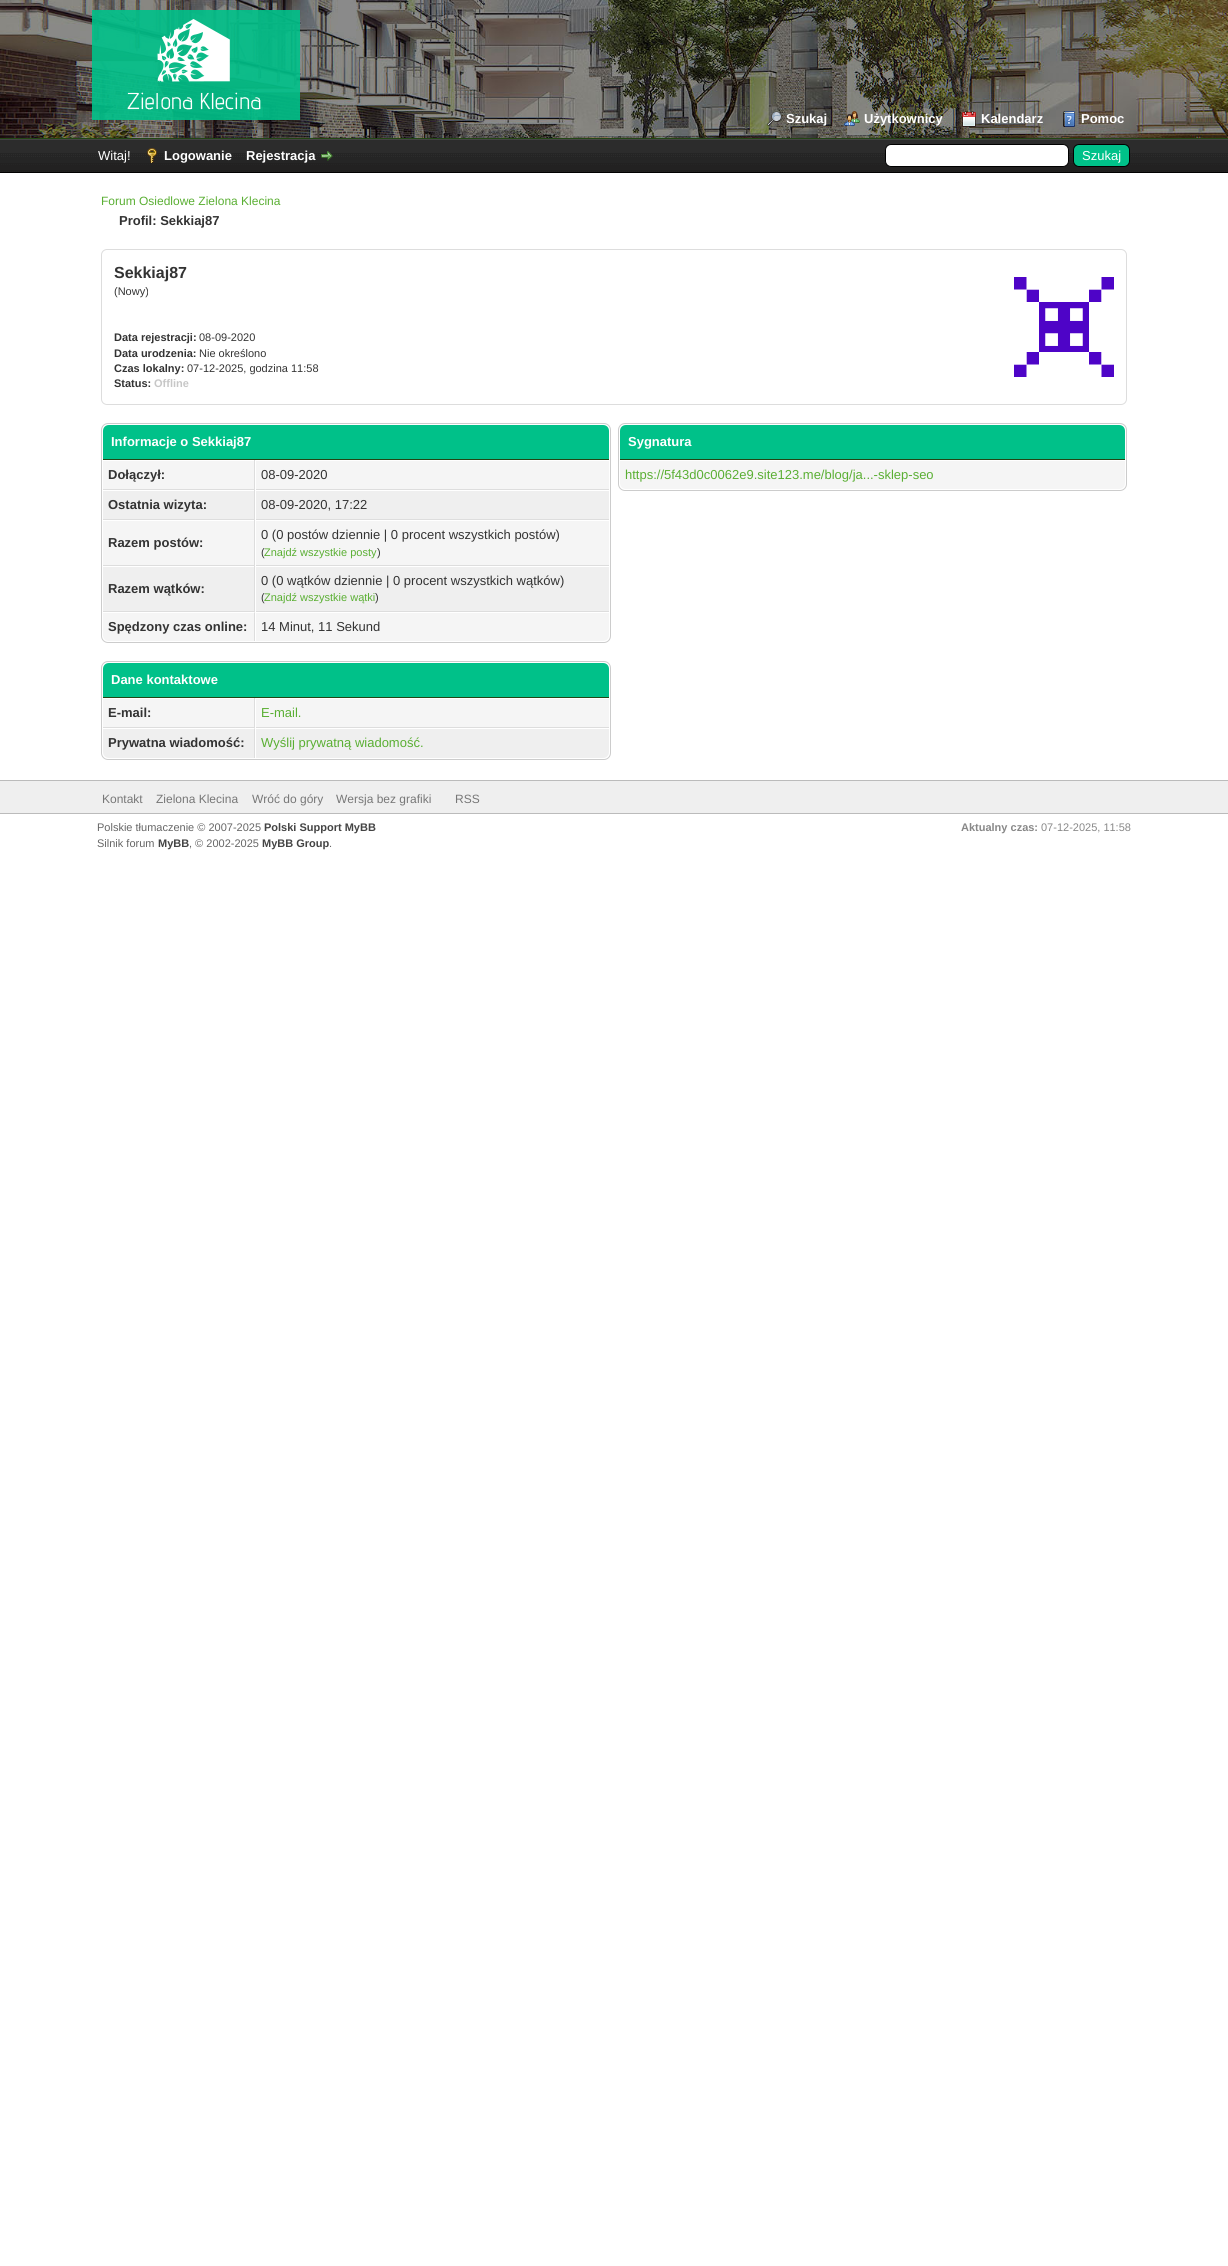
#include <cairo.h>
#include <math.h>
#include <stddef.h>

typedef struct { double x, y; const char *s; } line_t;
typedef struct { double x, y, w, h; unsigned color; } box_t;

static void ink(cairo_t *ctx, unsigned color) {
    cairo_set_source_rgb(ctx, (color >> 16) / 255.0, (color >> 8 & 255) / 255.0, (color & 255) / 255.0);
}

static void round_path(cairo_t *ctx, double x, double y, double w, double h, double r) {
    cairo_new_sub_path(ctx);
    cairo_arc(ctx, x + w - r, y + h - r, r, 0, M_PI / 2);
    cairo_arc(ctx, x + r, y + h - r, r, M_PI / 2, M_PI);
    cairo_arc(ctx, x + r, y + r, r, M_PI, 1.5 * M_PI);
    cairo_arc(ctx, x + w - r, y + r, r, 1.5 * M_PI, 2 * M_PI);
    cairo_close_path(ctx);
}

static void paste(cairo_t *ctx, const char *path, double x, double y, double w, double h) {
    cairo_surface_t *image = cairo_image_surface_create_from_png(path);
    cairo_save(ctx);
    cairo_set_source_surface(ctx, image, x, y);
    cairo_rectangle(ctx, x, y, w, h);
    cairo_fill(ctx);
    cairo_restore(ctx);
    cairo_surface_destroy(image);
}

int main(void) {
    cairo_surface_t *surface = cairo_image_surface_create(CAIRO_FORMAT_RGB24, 1228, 2266);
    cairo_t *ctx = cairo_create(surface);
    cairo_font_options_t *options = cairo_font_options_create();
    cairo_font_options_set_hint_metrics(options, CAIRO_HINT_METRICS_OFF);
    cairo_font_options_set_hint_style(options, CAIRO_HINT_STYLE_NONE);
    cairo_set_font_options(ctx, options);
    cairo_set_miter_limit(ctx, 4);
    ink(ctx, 0xFFFFFF);
    cairo_paint(ctx);
    paste(ctx, "media/1.png", 0, 0, 1228, 138);
    ink(ctx, 0x234615);
    cairo_rectangle(ctx, 0, 138, 1228, 1);
    cairo_fill(ctx);
    paste(ctx, "media/2.png", 92, 10, 208, 110);
    paste(ctx, "media/3.png", 767, 111, 15, 15);
    cairo_select_font_face(ctx, "Liberation Sans", CAIRO_FONT_SLANT_NORMAL, CAIRO_FONT_WEIGHT_BOLD);
    cairo_set_font_size(ctx, 13);
    ink(ctx, 0xFFFFFF);
    cairo_move_to(ctx, 786, 123);
    cairo_show_text(ctx, "Szukaj");
    paste(ctx, "media/4.png", 844, 111, 16, 15);
    cairo_move_to(ctx, 864, 123);
    cairo_show_text(ctx, "Użytkownicy");
    paste(ctx, "media/5.png", 962, 111, 14, 16);
    cairo_move_to(ctx, 981, 123);
    cairo_show_text(ctx, "Kalendarz");
    paste(ctx, "media/6.png", 1063, 111, 12, 16);
    cairo_move_to(ctx, 1081, 123);
    cairo_show_text(ctx, "Pomoc");
    paste(ctx, "media/7.png", 0, 140, 1228, 32);
    ink(ctx, 0x444444);
    cairo_rectangle(ctx, 0, 139, 1228, 1);
    cairo_fill(ctx);
    ink(ctx, 0x000000);
    cairo_rectangle(ctx, 0, 172, 1228, 1);
    cairo_fill(ctx);
    cairo_select_font_face(ctx, "Liberation Sans", CAIRO_FONT_SLANT_NORMAL, CAIRO_FONT_WEIGHT_NORMAL);
    ink(ctx, 0xFFFFFF);
    cairo_move_to(ctx, 98, 160);
    cairo_show_text(ctx, "Witaj!");
    paste(ctx, "media/8.png", 147, 148, 10, 15);
    cairo_select_font_face(ctx, "Liberation Sans", CAIRO_FONT_SLANT_NORMAL, CAIRO_FONT_WEIGHT_BOLD);
    cairo_move_to(ctx, 164, 160);
    cairo_show_text(ctx, "Logowanie");
    cairo_move_to(ctx, 246, 160);
    cairo_show_text(ctx, "Rejestracja");
    paste(ctx, "media/9.png", 321, 151, 12, 10);
    round_path(ctx, 885.5, 144.5, 183, 22, 5.5);
    cairo_fill_preserve(ctx);
    ink(ctx, 0x000000);
    cairo_set_line_width(ctx, 1);
    cairo_stroke(ctx);
    ink(ctx, 0x00C189);
    round_path(ctx, 1073.5, 144.5, 56, 22, 5.5);
    cairo_fill_preserve(ctx);
    ink(ctx, 0x000000);
    cairo_stroke(ctx);
    cairo_select_font_face(ctx, "Liberation Sans", CAIRO_FONT_SLANT_NORMAL, CAIRO_FONT_WEIGHT_NORMAL);
    ink(ctx, 0xFFFFFF);
    cairo_move_to(ctx, 1082, 160);
    cairo_show_text(ctx, "Szukaj");
    cairo_set_font_size(ctx, 12);
    ink(ctx, 0x5AAF33);
    cairo_move_to(ctx, 101, 205);
    cairo_show_text(ctx, "Forum Osiedlowe Zielona Klecina");
    cairo_select_font_face(ctx, "Liberation Sans", CAIRO_FONT_SLANT_NORMAL, CAIRO_FONT_WEIGHT_BOLD);
    cairo_set_font_size(ctx, 13);
    ink(ctx, 0x333333);
    cairo_move_to(ctx, 119, 225);
    cairo_show_text(ctx, "Profil: Sekkiaj87");
    round_path(ctx, 101.5, 249.5, 1025, 155, 5.5);
    ink(ctx, 0xDDDDDD);
    cairo_stroke(ctx);
    cairo_set_font_size(ctx, 16);
    ink(ctx, 0x333333);
    cairo_move_to(ctx, 114, 278);
    cairo_show_text(ctx, "Sekkiaj87");
    cairo_select_font_face(ctx, "Liberation Sans", CAIRO_FONT_SLANT_NORMAL, CAIRO_FONT_WEIGHT_NORMAL);
    cairo_set_font_size(ctx, 11);
    cairo_move_to(ctx, 114, 295);
    cairo_show_text(ctx, "(Nowy)");
    cairo_select_font_face(ctx, "Liberation Sans", CAIRO_FONT_SLANT_NORMAL, CAIRO_FONT_WEIGHT_BOLD);
    cairo_move_to(ctx, 114, 341);
    cairo_show_text(ctx, "Data rejestracji:");
    cairo_select_font_face(ctx, "Liberation Sans", CAIRO_FONT_SLANT_NORMAL, CAIRO_FONT_WEIGHT_NORMAL);
    cairo_move_to(ctx, 199, 341);
    cairo_show_text(ctx, "08-09-2020");
    cairo_select_font_face(ctx, "Liberation Sans", CAIRO_FONT_SLANT_NORMAL, CAIRO_FONT_WEIGHT_BOLD);
    cairo_move_to(ctx, 114, 357);
    cairo_show_text(ctx, "Data urodzenia:");
    cairo_select_font_face(ctx, "Liberation Sans", CAIRO_FONT_SLANT_NORMAL, CAIRO_FONT_WEIGHT_NORMAL);
    cairo_move_to(ctx, 199, 357);
    cairo_show_text(ctx, "Nie określono");
    cairo_select_font_face(ctx, "Liberation Sans", CAIRO_FONT_SLANT_NORMAL, CAIRO_FONT_WEIGHT_BOLD);
    cairo_move_to(ctx, 114, 372);
    cairo_show_text(ctx, "Czas lokalny:");
    cairo_select_font_face(ctx, "Liberation Sans", CAIRO_FONT_SLANT_NORMAL, CAIRO_FONT_WEIGHT_NORMAL);
    cairo_move_to(ctx, 187, 372);
    cairo_show_text(ctx, "07-12-2025, godzina 11:58");
    cairo_select_font_face(ctx, "Liberation Sans", CAIRO_FONT_SLANT_NORMAL, CAIRO_FONT_WEIGHT_BOLD);
    cairo_move_to(ctx, 114, 387);
    cairo_show_text(ctx, "Status:");
    ink(ctx, 0xC7C7C7);
    cairo_move_to(ctx, 154, 387);
    cairo_show_text(ctx, "Offline");
    paste(ctx, "media/10.png", 1014, 277, 100, 100);
    round_path(ctx, 101.5, 423.5, 509, 219, 6.5);
    ink(ctx, 0xCCCCCC);
    cairo_stroke(ctx);
    ink(ctx, 0x00C189);
    cairo_new_path(ctx);
    cairo_move_to(ctx, 109, 425);
    cairo_line_to(ctx, 603, 425);
    cairo_curve_to(ctx, 606.5, 425, 609, 427.5, 609, 431);
    cairo_line_to(ctx, 609, 460);
    cairo_line_to(ctx, 103, 460);
    cairo_line_to(ctx, 103, 431);
    cairo_curve_to(ctx, 103, 427.5, 105.5, 425, 109, 425);
    cairo_close_path(ctx);
    cairo_fill(ctx);
    ink(ctx, 0x234615);
    cairo_rectangle(ctx, 103, 459, 506, 1);
    cairo_fill(ctx);
    cairo_set_font_size(ctx, 13);
    ink(ctx, 0xFFFFFF);
    cairo_move_to(ctx, 111, 446);
    cairo_show_text(ctx, "Informacje o Sekkiaj87");
    {
        static const box_t items[] = {
            {103, 461, 151, 28, 0xF5F5F5},
            {254, 460, 1, 152, 0xDDDDDD},
            {103, 489, 506, 1, 0xDDDDDD},
        };
        for (size_t i = 0; i < sizeof items / sizeof *items; i++) {
            ink(ctx, items[i].color);
            cairo_rectangle(ctx, items[i].x, items[i].y, items[i].w, items[i].h);
            cairo_fill(ctx);
        }
    }
    ink(ctx, 0x333333);
    cairo_move_to(ctx, 108, 479);
    cairo_show_text(ctx, "Dołączył:");
    ink(ctx, 0xF5F5F5);
    cairo_rectangle(ctx, 256, 461, 353, 28);
    cairo_fill(ctx);
    ink(ctx, 0xFFFFFF);
    cairo_rectangle(ctx, 255, 489, 1, 1);
    cairo_fill(ctx);
    cairo_select_font_face(ctx, "Liberation Sans", CAIRO_FONT_SLANT_NORMAL, CAIRO_FONT_WEIGHT_NORMAL);
    ink(ctx, 0x333333);
    cairo_move_to(ctx, 261, 479);
    cairo_show_text(ctx, "08-09-2020");
    ink(ctx, 0xEFEFEF);
    cairo_rectangle(ctx, 103, 491, 151, 28);
    cairo_fill(ctx);
    ink(ctx, 0xDDDDDD);
    cairo_rectangle(ctx, 103, 519, 506, 1);
    cairo_fill(ctx);
    cairo_select_font_face(ctx, "Liberation Sans", CAIRO_FONT_SLANT_NORMAL, CAIRO_FONT_WEIGHT_BOLD);
    ink(ctx, 0x333333);
    cairo_move_to(ctx, 108, 509);
    cairo_show_text(ctx, "Ostatnia wizyta:");
    ink(ctx, 0xEFEFEF);
    cairo_rectangle(ctx, 256, 491, 353, 28);
    cairo_fill(ctx);
    ink(ctx, 0xFFFFFF);
    cairo_rectangle(ctx, 255, 519, 1, 1);
    cairo_fill(ctx);
    cairo_select_font_face(ctx, "Liberation Sans", CAIRO_FONT_SLANT_NORMAL, CAIRO_FONT_WEIGHT_NORMAL);
    ink(ctx, 0x333333);
    cairo_move_to(ctx, 261, 509);
    cairo_show_text(ctx, "08-09-2020, 17:22");
    ink(ctx, 0xF5F5F5);
    cairo_rectangle(ctx, 103, 521, 151, 44);
    cairo_fill(ctx);
    ink(ctx, 0xDDDDDD);
    cairo_rectangle(ctx, 103, 565, 506, 1);
    cairo_fill(ctx);
    cairo_select_font_face(ctx, "Liberation Sans", CAIRO_FONT_SLANT_NORMAL, CAIRO_FONT_WEIGHT_BOLD);
    ink(ctx, 0x333333);
    cairo_move_to(ctx, 108, 547);
    cairo_show_text(ctx, "Razem postów:");
    ink(ctx, 0xF5F5F5);
    cairo_rectangle(ctx, 256, 521, 353, 44);
    cairo_fill(ctx);
    ink(ctx, 0xFFFFFF);
    cairo_rectangle(ctx, 255, 565, 1, 1);
    cairo_fill(ctx);
    cairo_select_font_face(ctx, "Liberation Sans", CAIRO_FONT_SLANT_NORMAL, CAIRO_FONT_WEIGHT_NORMAL);
    ink(ctx, 0x333333);
    cairo_move_to(ctx, 261, 539);
    cairo_show_text(ctx, "0 (0 postów dziennie | 0 procent wszystkich postów)");
    cairo_set_font_size(ctx, 11);
    cairo_move_to(ctx, 261, 556);
    cairo_show_text(ctx, "(");
    ink(ctx, 0x5AAF33);
    cairo_move_to(ctx, 264, 556);
    cairo_show_text(ctx, "Znajdź wszystkie posty");
    ink(ctx, 0x333333);
    cairo_move_to(ctx, 377, 556);
    cairo_show_text(ctx, ")");
    ink(ctx, 0xEFEFEF);
    cairo_rectangle(ctx, 103, 567, 151, 44);
    cairo_fill(ctx);
    ink(ctx, 0xDDDDDD);
    cairo_rectangle(ctx, 103, 611, 506, 1);
    cairo_fill(ctx);
    cairo_select_font_face(ctx, "Liberation Sans", CAIRO_FONT_SLANT_NORMAL, CAIRO_FONT_WEIGHT_BOLD);
    cairo_set_font_size(ctx, 13);
    ink(ctx, 0x333333);
    cairo_move_to(ctx, 108, 593);
    cairo_show_text(ctx, "Razem wątków:");
    ink(ctx, 0xEFEFEF);
    cairo_rectangle(ctx, 256, 567, 353, 44);
    cairo_fill(ctx);
    ink(ctx, 0xFFFFFF);
    cairo_rectangle(ctx, 255, 611, 1, 1);
    cairo_fill(ctx);
    cairo_select_font_face(ctx, "Liberation Sans", CAIRO_FONT_SLANT_NORMAL, CAIRO_FONT_WEIGHT_NORMAL);
    ink(ctx, 0x333333);
    cairo_move_to(ctx, 261, 585);
    cairo_show_text(ctx, "0 (0 wątków dziennie | 0 procent wszystkich wątków)");
    cairo_set_font_size(ctx, 11);
    cairo_move_to(ctx, 261, 601);
    cairo_show_text(ctx, "(");
    ink(ctx, 0x5AAF33);
    cairo_move_to(ctx, 264, 601);
    cairo_show_text(ctx, "Znajdź wszystkie wątki");
    ink(ctx, 0x333333);
    cairo_move_to(ctx, 375, 601);
    cairo_show_text(ctx, ")");
    ink(ctx, 0xF5F5F5);
    cairo_new_path(ctx);
    cairo_move_to(ctx, 103, 612);
    cairo_line_to(ctx, 255, 612);
    cairo_line_to(ctx, 255, 641);
    cairo_line_to(ctx, 109, 641);
    cairo_curve_to(ctx, 105.5, 641, 103, 638.5, 103, 635);
    cairo_close_path(ctx);
    cairo_fill(ctx);
    ink(ctx, 0xFFFFFF);
    cairo_new_path(ctx);
    cairo_move_to(ctx, 103, 612);
    cairo_line_to(ctx, 103, 613);
    cairo_line_to(ctx, 254, 613);
    cairo_line_to(ctx, 255, 612);
    cairo_close_path(ctx);
    cairo_fill(ctx);
    ink(ctx, 0xDDDDDD);
    cairo_new_path(ctx);
    cairo_move_to(ctx, 255, 612);
    cairo_line_to(ctx, 254, 613);
    cairo_line_to(ctx, 254, 641);
    cairo_line_to(ctx, 255, 641);
    cairo_close_path(ctx);
    cairo_fill(ctx);
    cairo_select_font_face(ctx, "Liberation Sans", CAIRO_FONT_SLANT_NORMAL, CAIRO_FONT_WEIGHT_BOLD);
    cairo_set_font_size(ctx, 13);
    ink(ctx, 0x333333);
    cairo_move_to(ctx, 108, 631);
    cairo_show_text(ctx, "Spędzony czas online:");
    ink(ctx, 0xF5F5F5);
    cairo_new_path(ctx);
    cairo_move_to(ctx, 255, 612);
    cairo_line_to(ctx, 609, 612);
    cairo_line_to(ctx, 609, 635);
    cairo_curve_to(ctx, 609, 638.5, 606.5, 641, 603, 641);
    cairo_line_to(ctx, 255, 641);
    cairo_close_path(ctx);
    cairo_fill(ctx);
    ink(ctx, 0xFFFFFF);
    cairo_rectangle(ctx, 255, 612, 354, 1);
    cairo_fill(ctx);
    cairo_rectangle(ctx, 255, 612, 1, 29);
    cairo_fill(ctx);
    cairo_select_font_face(ctx, "Liberation Sans", CAIRO_FONT_SLANT_NORMAL, CAIRO_FONT_WEIGHT_NORMAL);
    ink(ctx, 0x333333);
    cairo_move_to(ctx, 261, 631);
    cairo_show_text(ctx, "14 Minut, 11 Sekund");
    round_path(ctx, 101.5, 661.5, 509, 98, 6.5);
    ink(ctx, 0xCCCCCC);
    cairo_stroke(ctx);
    ink(ctx, 0x00C189);
    cairo_new_path(ctx);
    cairo_move_to(ctx, 109, 663);
    cairo_line_to(ctx, 603, 663);
    cairo_curve_to(ctx, 606.5, 663, 609, 665.5, 609, 669);
    cairo_line_to(ctx, 609, 698);
    cairo_line_to(ctx, 103, 698);
    cairo_line_to(ctx, 103, 669);
    cairo_curve_to(ctx, 103, 665.5, 105.5, 663, 109, 663);
    cairo_close_path(ctx);
    cairo_fill(ctx);
    ink(ctx, 0x234615);
    cairo_rectangle(ctx, 103, 697, 506, 1);
    cairo_fill(ctx);
    cairo_select_font_face(ctx, "Liberation Sans", CAIRO_FONT_SLANT_NORMAL, CAIRO_FONT_WEIGHT_BOLD);
    ink(ctx, 0xFFFFFF);
    cairo_move_to(ctx, 111, 684);
    cairo_show_text(ctx, "Dane kontaktowe");
    {
        static const box_t items[] = {
            {103, 699, 151, 28, 0xF5F5F5},
            {254, 698, 1, 30, 0xDDDDDD},
            {103, 727, 506, 1, 0xDDDDDD},
        };
        for (size_t i = 0; i < sizeof items / sizeof *items; i++) {
            ink(ctx, items[i].color);
            cairo_rectangle(ctx, items[i].x, items[i].y, items[i].w, items[i].h);
            cairo_fill(ctx);
        }
    }
    ink(ctx, 0x333333);
    cairo_move_to(ctx, 108, 717);
    cairo_show_text(ctx, "E-mail:");
    ink(ctx, 0xF5F5F5);
    cairo_rectangle(ctx, 256, 699, 353, 28);
    cairo_fill(ctx);
    ink(ctx, 0xFFFFFF);
    cairo_rectangle(ctx, 255, 727, 1, 1);
    cairo_fill(ctx);
    cairo_select_font_face(ctx, "Liberation Sans", CAIRO_FONT_SLANT_NORMAL, CAIRO_FONT_WEIGHT_NORMAL);
    ink(ctx, 0x5AAF33);
    cairo_move_to(ctx, 261, 717);
    cairo_show_text(ctx, "E-mail.");
    ink(ctx, 0xEFEFEF);
    cairo_new_path(ctx);
    cairo_move_to(ctx, 103, 728);
    cairo_line_to(ctx, 255, 728);
    cairo_line_to(ctx, 255, 758);
    cairo_line_to(ctx, 109, 758);
    cairo_curve_to(ctx, 105.5, 758, 103, 755.5, 103, 752);
    cairo_close_path(ctx);
    cairo_fill(ctx);
    ink(ctx, 0xFFFFFF);
    cairo_new_path(ctx);
    cairo_move_to(ctx, 103, 728);
    cairo_line_to(ctx, 103, 729);
    cairo_line_to(ctx, 254, 729);
    cairo_line_to(ctx, 255, 728);
    cairo_close_path(ctx);
    cairo_fill(ctx);
    ink(ctx, 0xDDDDDD);
    cairo_new_path(ctx);
    cairo_move_to(ctx, 255, 728);
    cairo_line_to(ctx, 254, 729);
    cairo_line_to(ctx, 254, 758);
    cairo_line_to(ctx, 255, 758);
    cairo_close_path(ctx);
    cairo_fill(ctx);
    cairo_select_font_face(ctx, "Liberation Sans", CAIRO_FONT_SLANT_NORMAL, CAIRO_FONT_WEIGHT_BOLD);
    ink(ctx, 0x333333);
    cairo_move_to(ctx, 108, 747);
    cairo_show_text(ctx, "Prywatna wiadomość:");
    ink(ctx, 0xEFEFEF);
    cairo_new_path(ctx);
    cairo_move_to(ctx, 255, 728);
    cairo_line_to(ctx, 609, 728);
    cairo_line_to(ctx, 609, 752);
    cairo_curve_to(ctx, 609, 755.5, 606.5, 758, 603, 758);
    cairo_line_to(ctx, 255, 758);
    cairo_close_path(ctx);
    cairo_fill(ctx);
    ink(ctx, 0xFFFFFF);
    cairo_rectangle(ctx, 255, 728, 354, 1);
    cairo_fill(ctx);
    cairo_rectangle(ctx, 255, 728, 1, 30);
    cairo_fill(ctx);
    cairo_select_font_face(ctx, "Liberation Sans", CAIRO_FONT_SLANT_NORMAL, CAIRO_FONT_WEIGHT_NORMAL);
    ink(ctx, 0x5AAF33);
    cairo_move_to(ctx, 261, 747);
    cairo_show_text(ctx, "Wyślij prywatną wiadomość.");
    round_path(ctx, 618.5, 423.5, 508, 67, 6.5);
    ink(ctx, 0xCCCCCC);
    cairo_stroke(ctx);
    ink(ctx, 0x00C189);
    cairo_new_path(ctx);
    cairo_move_to(ctx, 626, 425);
    cairo_line_to(ctx, 1119, 425);
    cairo_curve_to(ctx, 1122.5, 425, 1125, 427.5, 1125, 431);
    cairo_line_to(ctx, 1125, 460);
    cairo_line_to(ctx, 620, 460);
    cairo_line_to(ctx, 620, 431);
    cairo_curve_to(ctx, 620, 427.5, 622.5, 425, 626, 425);
    cairo_close_path(ctx);
    cairo_fill(ctx);
    ink(ctx, 0x234615);
    cairo_rectangle(ctx, 620, 459, 505, 1);
    cairo_fill(ctx);
    cairo_select_font_face(ctx, "Liberation Sans", CAIRO_FONT_SLANT_NORMAL, CAIRO_FONT_WEIGHT_BOLD);
    ink(ctx, 0xFFFFFF);
    cairo_move_to(ctx, 628, 446);
    cairo_show_text(ctx, "Sygnatura");
    ink(ctx, 0xF5F5F5);
    cairo_new_path(ctx);
    cairo_move_to(ctx, 620, 460);
    cairo_line_to(ctx, 1125, 460);
    cairo_line_to(ctx, 1125, 483);
    cairo_curve_to(ctx, 1125, 486.5, 1122.5, 489, 1119, 489);
    cairo_line_to(ctx, 626, 489);
    cairo_curve_to(ctx, 622.5, 489, 620, 486.5, 620, 483);
    cairo_close_path(ctx);
    cairo_fill(ctx);
    ink(ctx, 0xFFFFFF);
    cairo_rectangle(ctx, 620, 460, 505, 1);
    cairo_fill(ctx);
    cairo_select_font_face(ctx, "Liberation Sans", CAIRO_FONT_SLANT_NORMAL, CAIRO_FONT_WEIGHT_NORMAL);
    ink(ctx, 0x5AAF33);
    cairo_move_to(ctx, 625, 479);
    cairo_show_text(ctx, "https://5f43d0c0062e9.site123.me/blog/ja...-sklep-seo");
    {
        static const box_t items[] = {
            {0, 781, 1228, 32, 0xEFEFEF},
            {0, 780, 1228, 1, 0xBBBBBB},
            {0, 813, 1228, 1, 0xBBBBBB},
        };
        for (size_t i = 0; i < sizeof items / sizeof *items; i++) {
            ink(ctx, items[i].color);
            cairo_rectangle(ctx, items[i].x, items[i].y, items[i].w, items[i].h);
            cairo_fill(ctx);
        }
    }
    cairo_set_font_size(ctx, 12);
    ink(ctx, 0x777777);
    {
        static const line_t items[] = {
            {102, 803, "Kontakt"},
            {156, 803, "Zielona Klecina"},
            {252, 803, "Wróć do góry"},
            {336, 803, "Wersja bez grafiki"},
            {455, 803, "RSS"},
        };
        for (size_t i = 0; i < sizeof items / sizeof *items; i++) {
            cairo_move_to(ctx, items[i].x, items[i].y);
            cairo_show_text(ctx, items[i].s);
        }
    }
    cairo_set_font_size(ctx, 11);
    ink(ctx, 0x666666);
    cairo_move_to(ctx, 97, 831);
    cairo_show_text(ctx, "Polskie tłumaczenie © 2007-2025");
    cairo_select_font_face(ctx, "Liberation Sans", CAIRO_FONT_SLANT_NORMAL, CAIRO_FONT_WEIGHT_BOLD);
    ink(ctx, 0x444444);
    cairo_move_to(ctx, 264, 831);
    cairo_show_text(ctx, "Polski Support MyBB");
    ink(ctx, 0x888888);
    cairo_move_to(ctx, 961, 831);
    cairo_show_text(ctx, "Aktualny czas:");
    cairo_select_font_face(ctx, "Liberation Sans", CAIRO_FONT_SLANT_NORMAL, CAIRO_FONT_WEIGHT_NORMAL);
    cairo_move_to(ctx, 1041, 831);
    cairo_show_text(ctx, "07-12-2025, 11:58");
    ink(ctx, 0x666666);
    cairo_move_to(ctx, 97, 847);
    cairo_show_text(ctx, "Silnik forum");
    cairo_select_font_face(ctx, "Liberation Sans", CAIRO_FONT_SLANT_NORMAL, CAIRO_FONT_WEIGHT_BOLD);
    ink(ctx, 0x444444);
    cairo_move_to(ctx, 158, 847);
    cairo_show_text(ctx, "MyBB");
    cairo_select_font_face(ctx, "Liberation Sans", CAIRO_FONT_SLANT_NORMAL, CAIRO_FONT_WEIGHT_NORMAL);
    ink(ctx, 0x666666);
    cairo_move_to(ctx, 189, 847);
    cairo_show_text(ctx, ", © 2002-2025");
    cairo_select_font_face(ctx, "Liberation Sans", CAIRO_FONT_SLANT_NORMAL, CAIRO_FONT_WEIGHT_BOLD);
    ink(ctx, 0x444444);
    cairo_move_to(ctx, 262, 847);
    cairo_show_text(ctx, "MyBB Group");
    cairo_select_font_face(ctx, "Liberation Sans", CAIRO_FONT_SLANT_NORMAL, CAIRO_FONT_WEIGHT_NORMAL);
    ink(ctx, 0x666666);
    cairo_move_to(ctx, 329, 847);
    cairo_show_text(ctx, ".");
    cairo_surface_write_to_png(surface, "image.png");
    cairo_font_options_destroy(options);
    cairo_destroy(ctx);
    cairo_surface_destroy(surface);
    return 0;
}
